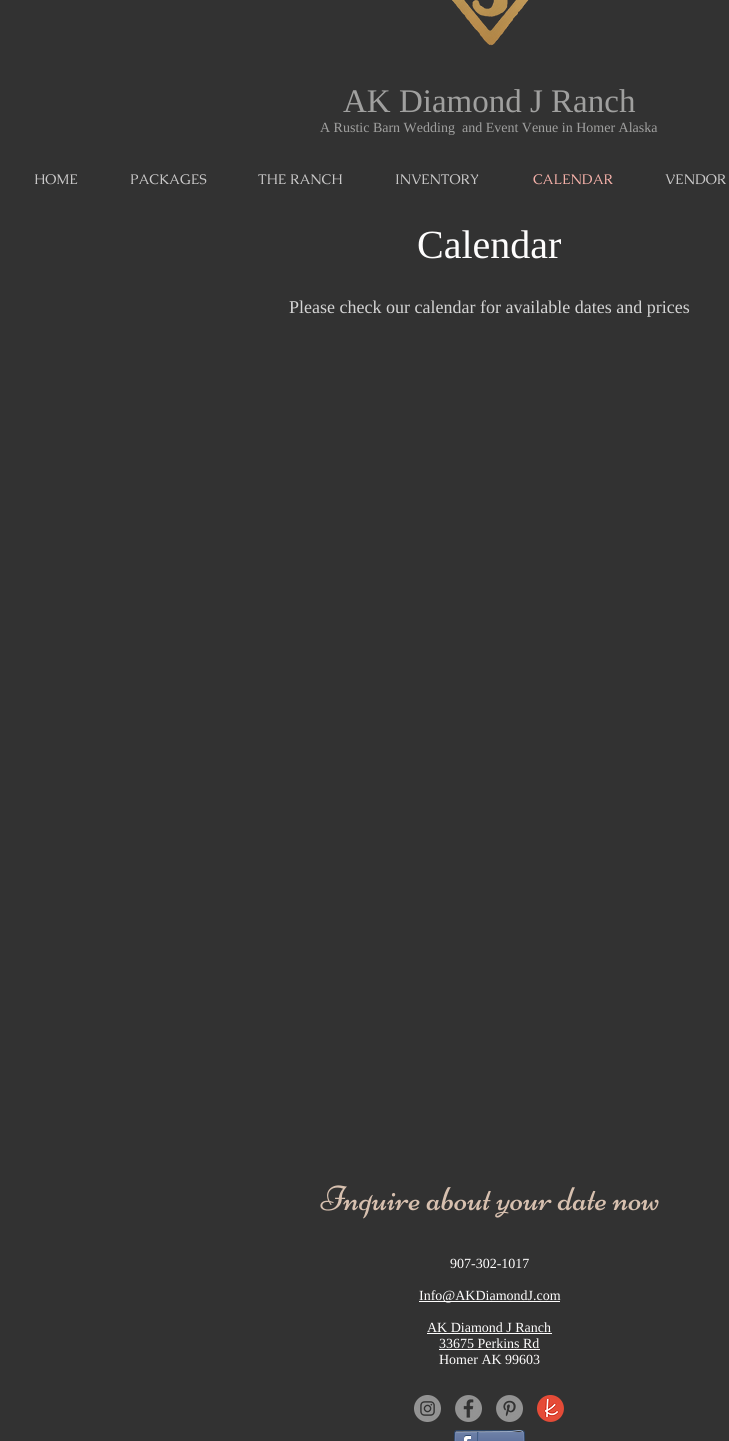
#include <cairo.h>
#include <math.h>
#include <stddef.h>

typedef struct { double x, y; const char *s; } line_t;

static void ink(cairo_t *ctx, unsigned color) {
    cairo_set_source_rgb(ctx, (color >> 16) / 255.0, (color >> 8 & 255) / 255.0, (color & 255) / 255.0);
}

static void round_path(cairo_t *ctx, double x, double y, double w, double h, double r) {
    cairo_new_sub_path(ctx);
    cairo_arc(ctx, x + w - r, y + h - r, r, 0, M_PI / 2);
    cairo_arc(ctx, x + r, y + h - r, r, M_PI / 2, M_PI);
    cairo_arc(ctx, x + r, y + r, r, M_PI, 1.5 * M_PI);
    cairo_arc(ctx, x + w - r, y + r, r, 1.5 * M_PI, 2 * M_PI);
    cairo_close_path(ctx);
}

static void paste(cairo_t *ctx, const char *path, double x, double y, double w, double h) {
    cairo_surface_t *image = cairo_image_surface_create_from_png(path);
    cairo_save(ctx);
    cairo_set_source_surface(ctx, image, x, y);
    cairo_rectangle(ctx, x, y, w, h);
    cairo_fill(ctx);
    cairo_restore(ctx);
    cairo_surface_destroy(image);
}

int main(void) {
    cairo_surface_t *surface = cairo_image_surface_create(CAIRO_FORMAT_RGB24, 729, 1441);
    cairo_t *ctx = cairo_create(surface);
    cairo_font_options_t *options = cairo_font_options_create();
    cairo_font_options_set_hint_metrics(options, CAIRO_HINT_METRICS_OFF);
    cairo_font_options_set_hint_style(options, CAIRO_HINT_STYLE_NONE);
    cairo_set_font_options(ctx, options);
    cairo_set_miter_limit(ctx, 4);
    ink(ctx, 0x323232);
    cairo_paint(ctx);
    paste(ctx, "media/1.png", 452, 0, 77, 46);
    cairo_select_font_face(ctx, "Liberation Serif", CAIRO_FONT_SLANT_NORMAL, CAIRO_FONT_WEIGHT_NORMAL);
    cairo_set_font_size(ctx, 33);
    ink(ctx, 0xA0A09F);
    cairo_move_to(ctx, 343, 112);
    cairo_show_text(ctx, "AK Diamond J Ranch");
    cairo_set_font_size(ctx, 14);
    cairo_move_to(ctx, 320, 132);
    cairo_show_text(ctx, "A Rustic Barn Wedding  and Event Venue in Homer Alaska");
    cairo_select_font_face(ctx, "Caudex", CAIRO_FONT_SLANT_NORMAL, CAIRO_FONT_WEIGHT_NORMAL);
    ink(ctx, 0xCBCACA);
    {
        static const line_t items[] = {
            {34, 184, "HOME"},
            {130, 184, "PACKAGES"},
            {258, 184, "THE RANCH"},
            {395, 184, "INVENTORY"},
        };
        for (size_t i = 0; i < sizeof items / sizeof *items; i++) {
            cairo_move_to(ctx, items[i].x, items[i].y);
            cairo_show_text(ctx, items[i].s);
        }
    }
    ink(ctx, 0xF7B2AA);
    cairo_move_to(ctx, 533, 184);
    cairo_show_text(ctx, "CALENDAR");
    ink(ctx, 0xCBCACA);
    cairo_move_to(ctx, 665, 184);
    cairo_show_text(ctx, "VENDOR");
    cairo_select_font_face(ctx, "Liberation Serif", CAIRO_FONT_SLANT_NORMAL, CAIRO_FONT_WEIGHT_NORMAL);
    cairo_set_font_size(ctx, 40);
    ink(ctx, 0xFEFDFD);
    cairo_move_to(ctx, 417, 258);
    cairo_show_text(ctx, "Calendar");
    cairo_set_font_size(ctx, 18);
    ink(ctx, 0xD4D4D4);
    cairo_move_to(ctx, 289, 313);
    cairo_show_text(ctx, "Please check our calendar for available dates and prices");
    paste(ctx, "media/2.png", 320, 1185, 339, 34);
    cairo_set_font_size(ctx, 14);
    ink(ctx, 0xFEFDFD);
    cairo_move_to(ctx, 450, 1268);
    cairo_show_text(ctx, "907-302-1017");
    cairo_rectangle(ctx, 419, 1301, 141, 1);
    cairo_fill(ctx);
    cairo_move_to(ctx, 419, 1300);
    cairo_show_text(ctx, "Info@AKDiamondJ.com");
    cairo_move_to(ctx, 427, 1332);
    cairo_show_text(ctx, "AK Diamond J Ranch");
    cairo_rectangle(ctx, 427, 1333, 125, 1);
    cairo_fill(ctx);
    cairo_move_to(ctx, 439, 1348);
    cairo_show_text(ctx, "33675 Perkins Rd");
    cairo_rectangle(ctx, 439, 1349, 101, 1);
    cairo_fill(ctx);
    cairo_move_to(ctx, 439, 1364);
    cairo_show_text(ctx, "Homer AK 99603");
    paste(ctx, "media/3.png", 414, 1395, 27, 27);
    paste(ctx, "media/4.png", 455, 1395, 27, 27);
    paste(ctx, "media/5.png", 496, 1395, 27, 27);
    paste(ctx, "media/6.png", 537, 1395, 27, 27);
    round_path(ctx, 454.5, 1430.5, 70, 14, 2.5);
    ink(ctx, 0x2D4565);
    cairo_set_line_width(ctx, 1);
    cairo_stroke(ctx);
    paste(ctx, "media/7.png", 455, 1432, 69, 9);
    cairo_new_path(ctx);
    cairo_move_to(ctx, 456, 1432);
    cairo_line_to(ctx, 511, 1431.5);
    cairo_curve_to(ctx, 515, 1431.5, 520, 1429, 523, 1432);
    ink(ctx, 0x9AABC6);
    cairo_stroke(ctx);
    cairo_new_path(ctx);
    cairo_move_to(ctx, 523, 1432);
    cairo_curve_to(ctx, 524, 1432.5, 524, 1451.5, 523, 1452);
    ink(ctx, 0x6F83AD);
    cairo_stroke(ctx);
    cairo_new_path(ctx);
    cairo_move_to(ctx, 456, 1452);
    cairo_curve_to(ctx, 455, 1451.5, 455, 1432.5, 456, 1432);
    cairo_stroke(ctx);
    paste(ctx, "media/8.png", 464, 1435, 7, 6);
    ink(ctx, 0x425E85);
    cairo_rectangle(ctx, 477, 1432, 1, 9);
    cairo_fill(ctx);
    ink(ctx, 0x6176A3);
    cairo_rectangle(ctx, 478, 1432, 1, 9);
    cairo_fill(ctx);
    cairo_surface_write_to_png(surface, "image.png");
    cairo_font_options_destroy(options);
    cairo_destroy(ctx);
    cairo_surface_destroy(surface);
    return 0;
}
